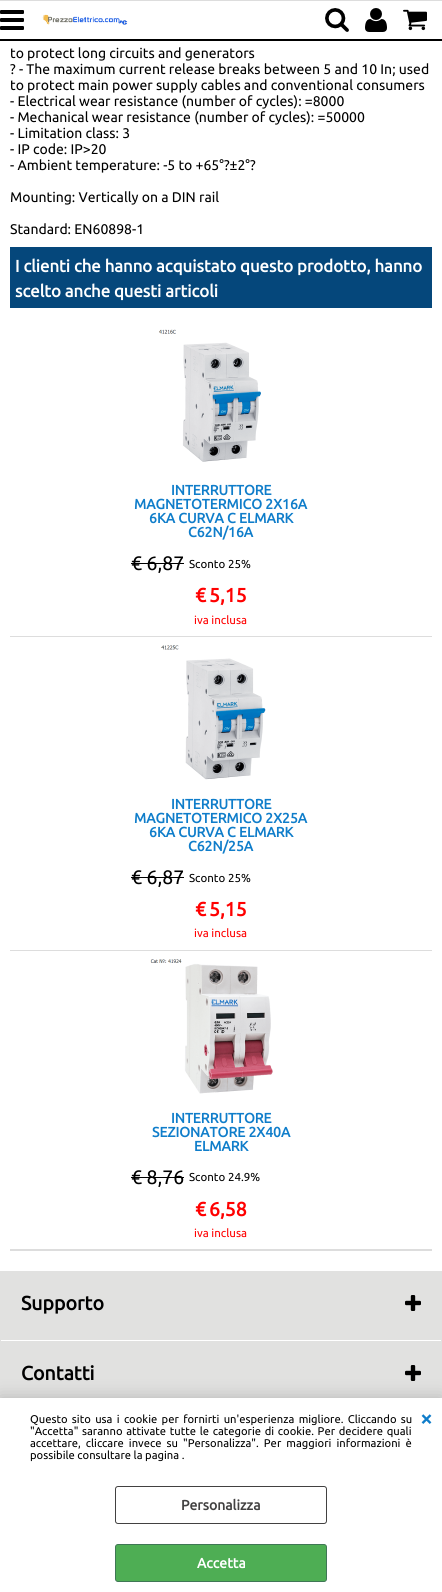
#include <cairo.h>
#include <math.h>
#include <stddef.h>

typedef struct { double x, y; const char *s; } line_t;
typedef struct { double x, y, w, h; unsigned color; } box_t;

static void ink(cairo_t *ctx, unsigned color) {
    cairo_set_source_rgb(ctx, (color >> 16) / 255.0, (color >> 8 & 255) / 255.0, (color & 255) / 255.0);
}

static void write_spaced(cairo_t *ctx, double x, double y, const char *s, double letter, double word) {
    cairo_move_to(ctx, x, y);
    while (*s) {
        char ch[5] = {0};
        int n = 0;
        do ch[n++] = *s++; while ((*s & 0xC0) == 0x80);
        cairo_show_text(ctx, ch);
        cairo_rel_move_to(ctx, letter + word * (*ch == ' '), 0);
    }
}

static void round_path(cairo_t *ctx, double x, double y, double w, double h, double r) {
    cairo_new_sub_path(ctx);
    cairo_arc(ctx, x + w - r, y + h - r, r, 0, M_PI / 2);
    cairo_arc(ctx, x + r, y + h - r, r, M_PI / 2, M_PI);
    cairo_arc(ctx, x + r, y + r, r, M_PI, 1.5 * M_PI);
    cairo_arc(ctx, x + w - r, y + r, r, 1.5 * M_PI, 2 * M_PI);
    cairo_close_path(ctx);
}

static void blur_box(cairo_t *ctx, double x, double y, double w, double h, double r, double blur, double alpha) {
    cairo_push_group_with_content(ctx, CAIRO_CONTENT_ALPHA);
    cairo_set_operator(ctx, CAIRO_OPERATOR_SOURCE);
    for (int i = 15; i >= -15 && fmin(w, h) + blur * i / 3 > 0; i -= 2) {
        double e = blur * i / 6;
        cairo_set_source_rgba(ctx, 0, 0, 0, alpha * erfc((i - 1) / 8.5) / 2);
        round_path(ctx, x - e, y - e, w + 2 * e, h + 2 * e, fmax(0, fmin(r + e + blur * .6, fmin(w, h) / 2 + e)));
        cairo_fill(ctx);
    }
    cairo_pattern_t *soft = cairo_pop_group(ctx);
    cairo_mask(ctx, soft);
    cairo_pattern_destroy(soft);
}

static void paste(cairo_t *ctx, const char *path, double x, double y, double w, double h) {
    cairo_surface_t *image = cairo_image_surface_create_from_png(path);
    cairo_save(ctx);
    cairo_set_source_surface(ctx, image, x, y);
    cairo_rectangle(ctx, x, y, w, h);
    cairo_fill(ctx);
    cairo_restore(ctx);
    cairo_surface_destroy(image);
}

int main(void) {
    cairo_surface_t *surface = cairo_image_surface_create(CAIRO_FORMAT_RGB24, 442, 1592);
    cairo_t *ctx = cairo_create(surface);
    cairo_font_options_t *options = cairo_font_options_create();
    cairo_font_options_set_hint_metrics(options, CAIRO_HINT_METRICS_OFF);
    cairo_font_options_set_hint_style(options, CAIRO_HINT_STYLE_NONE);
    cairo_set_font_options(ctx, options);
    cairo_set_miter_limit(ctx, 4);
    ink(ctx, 0xE1E1E0);
    cairo_paint(ctx);
    {
        static const box_t items[] = {
            {0, 1, 442, 38, 0xFFFFFF},
            {0, 0, 442, 1, 0xDDDDDD},
            {0, 39, 442, 2, 0x000000},
        };
        for (size_t i = 0; i < sizeof items / sizeof *items; i++) {
            ink(ctx, items[i].color);
            cairo_rectangle(ctx, items[i].x, items[i].y, items[i].w, items[i].h);
            cairo_fill(ctx);
        }
    }
    paste(ctx, "media/1.png", 0, 10, 24, 20);
    paste(ctx, "media/2.png", 42, 14, 86, 11);
    paste(ctx, "media/3.png", 325, 8, 24, 24);
    paste(ctx, "media/4.png", 365, 8, 22, 24);
    paste(ctx, "media/5.png", 403, 9, 24, 22);
    ink(ctx, 0xFFFFFF);
    cairo_rectangle(ctx, 0, 41, 442, 1230);
    cairo_fill(ctx);
    cairo_select_font_face(ctx, "Ubuntu", CAIRO_FONT_SLANT_NORMAL, CAIRO_FONT_WEIGHT_NORMAL);
    cairo_set_font_size(ctx, 14);
    ink(ctx, 0x000000);
    {
        static const line_t items[] = {
            {10, 58, "to protect long circuits and generators"},
            {10, 74, "? - The maximum current release breaks between 5 and 10 In; used"},
            {10, 90, "to protect main power supply cables and conventional consumers"},
            {10, 106, "- Electrical wear resistance (number of cycles): =8000"},
            {10, 122, "- Mechanical wear resistance (number of cycles): =50000"},
            {10, 138, "- Limitation class: 3"},
            {10, 154, "- IP code: IP>20"},
            {10, 170, "- Ambient temperature: -5 to +65°?±2°?"},
            {10, 202, "Mounting: Vertically on a DIN rail"},
            {10, 234, "Standard: EN60898-1"},
        };
        for (size_t i = 0; i < sizeof items / sizeof *items; i++) {
            cairo_move_to(ctx, items[i].x, items[i].y);
            cairo_show_text(ctx, items[i].s);
        }
    }
    ink(ctx, 0x05477B);
    cairo_rectangle(ctx, 10, 247, 422, 61);
    cairo_fill(ctx);
    cairo_select_font_face(ctx, "Ubuntu", CAIRO_FONT_SLANT_NORMAL, CAIRO_FONT_WEIGHT_BOLD);
    cairo_set_font_size(ctx, 16.8);
    ink(ctx, 0xFFFFFF);
    cairo_move_to(ctx, 15, 272);
    cairo_show_text(ctx, "I clienti che hanno acquistato questo prodotto, hanno");
    cairo_move_to(ctx, 15, 297);
    cairo_show_text(ctx, "scelto anche questi articoli");
    ink(ctx, 0xDDDDDD);
    cairo_rectangle(ctx, 10, 1249, 422, 2);
    cairo_fill(ctx);
    cairo_rectangle(ctx, 10, 636, 422, 1);
    cairo_fill(ctx);
    paste(ctx, "media/6.png", 159, 329, 102, 133);
    cairo_set_font_size(ctx, 14);
    ink(ctx, 0x0F7DCA);
    {
        static const line_t items[] = {
            {171, 495, "INTERRUTTORE"},
            {134, 509, "MAGNETOTERMICO 2X16A"},
            {149, 523, "6KA CURVA C ELMARK"},
            {188, 537, "C62N/16A"},
        };
        for (size_t i = 0; i < sizeof items / sizeof *items; i++) {
            cairo_move_to(ctx, items[i].x, items[i].y);
            cairo_show_text(ctx, items[i].s);
        }
    }
    cairo_select_font_face(ctx, "Ubuntu", CAIRO_FONT_SLANT_NORMAL, CAIRO_FONT_WEIGHT_NORMAL);
    cairo_set_font_size(ctx, 19.5);
    ink(ctx, 0x000000);
    cairo_move_to(ctx, 131, 570);
    cairo_show_text(ctx, "€ 6,87");
    cairo_rectangle(ctx, 131, 563, 53, 1);
    cairo_fill(ctx);
    cairo_set_font_size(ctx, 11.5);
    cairo_move_to(ctx, 189, 568);
    cairo_show_text(ctx, "Sconto 25%");
    cairo_select_font_face(ctx, "Ubuntu", CAIRO_FONT_SLANT_NORMAL, CAIRO_FONT_WEIGHT_BOLD);
    cairo_set_font_size(ctx, 19.5);
    ink(ctx, 0xFF0000);
    cairo_move_to(ctx, 195, 602);
    cairo_show_text(ctx, "€");
    cairo_move_to(ctx, 209, 602);
    cairo_show_text(ctx, "5,15");
    cairo_select_font_face(ctx, "Ubuntu", CAIRO_FONT_SLANT_NORMAL, CAIRO_FONT_WEIGHT_NORMAL);
    cairo_set_font_size(ctx, 11.5);
    cairo_move_to(ctx, 194, 624);
    cairo_show_text(ctx, "iva inclusa");
    ink(ctx, 0xDDDDDD);
    cairo_rectangle(ctx, 10, 950, 422, 1);
    cairo_fill(ctx);
    paste(ctx, "media/7.png", 161, 645, 105, 135);
    cairo_select_font_face(ctx, "Ubuntu", CAIRO_FONT_SLANT_NORMAL, CAIRO_FONT_WEIGHT_BOLD);
    cairo_set_font_size(ctx, 14);
    ink(ctx, 0x0F7DCA);
    {
        static const line_t items[] = {
            {171, 809, "INTERRUTTORE"},
            {134, 823, "MAGNETOTERMICO 2X25A"},
            {149, 837, "6KA CURVA C ELMARK"},
            {188, 851, "C62N/25A"},
        };
        for (size_t i = 0; i < sizeof items / sizeof *items; i++) {
            cairo_move_to(ctx, items[i].x, items[i].y);
            cairo_show_text(ctx, items[i].s);
        }
    }
    cairo_select_font_face(ctx, "Ubuntu", CAIRO_FONT_SLANT_NORMAL, CAIRO_FONT_WEIGHT_NORMAL);
    cairo_set_font_size(ctx, 19.5);
    ink(ctx, 0x000000);
    cairo_move_to(ctx, 131, 884);
    cairo_show_text(ctx, "€ 6,87");
    cairo_rectangle(ctx, 131, 877, 53, 1);
    cairo_fill(ctx);
    cairo_set_font_size(ctx, 11.5);
    cairo_move_to(ctx, 189, 882);
    cairo_show_text(ctx, "Sconto 25%");
    cairo_select_font_face(ctx, "Ubuntu", CAIRO_FONT_SLANT_NORMAL, CAIRO_FONT_WEIGHT_BOLD);
    cairo_set_font_size(ctx, 19.5);
    ink(ctx, 0xFF0000);
    cairo_move_to(ctx, 195, 916);
    cairo_show_text(ctx, "€");
    cairo_move_to(ctx, 209, 916);
    cairo_show_text(ctx, "5,15");
    cairo_select_font_face(ctx, "Ubuntu", CAIRO_FONT_SLANT_NORMAL, CAIRO_FONT_WEIGHT_NORMAL);
    cairo_set_font_size(ctx, 11.5);
    cairo_move_to(ctx, 194, 937);
    cairo_show_text(ctx, "iva inclusa");
    paste(ctx, "media/8.png", 150, 959, 123, 135);
    cairo_select_font_face(ctx, "Ubuntu", CAIRO_FONT_SLANT_NORMAL, CAIRO_FONT_WEIGHT_BOLD);
    cairo_set_font_size(ctx, 14);
    ink(ctx, 0x0F7DCA);
    {
        static const line_t items[] = {
            {171, 1123, "INTERRUTTORE"},
            {152, 1137, "SEZIONATORE 2X40A"},
            {194, 1151, "ELMARK"},
        };
        for (size_t i = 0; i < sizeof items / sizeof *items; i++) {
            cairo_move_to(ctx, items[i].x, items[i].y);
            cairo_show_text(ctx, items[i].s);
        }
    }
    cairo_select_font_face(ctx, "Ubuntu", CAIRO_FONT_SLANT_NORMAL, CAIRO_FONT_WEIGHT_NORMAL);
    cairo_set_font_size(ctx, 19.5);
    ink(ctx, 0x000000);
    cairo_move_to(ctx, 131, 1184);
    cairo_show_text(ctx, "€ 8,76");
    cairo_rectangle(ctx, 131, 1177, 53, 1);
    cairo_fill(ctx);
    cairo_set_font_size(ctx, 11.5);
    cairo_move_to(ctx, 189, 1181);
    cairo_show_text(ctx, "Sconto 24.9%");
    cairo_select_font_face(ctx, "Ubuntu", CAIRO_FONT_SLANT_NORMAL, CAIRO_FONT_WEIGHT_BOLD);
    cairo_set_font_size(ctx, 19.5);
    ink(ctx, 0xFF0000);
    cairo_move_to(ctx, 195, 1216);
    cairo_show_text(ctx, "€");
    cairo_move_to(ctx, 209, 1216);
    cairo_show_text(ctx, "6,58");
    cairo_select_font_face(ctx, "Ubuntu", CAIRO_FONT_SLANT_NORMAL, CAIRO_FONT_WEIGHT_NORMAL);
    cairo_set_font_size(ctx, 11.5);
    cairo_move_to(ctx, 194, 1237);
    cairo_show_text(ctx, "iva inclusa");
    ink(ctx, 0xFFFFFF);
    cairo_rectangle(ctx, 1, 1340, 440, 1);
    cairo_fill(ctx);
    paste(ctx, "media/9.png", 405, 1295, 16, 16);
    cairo_select_font_face(ctx, "Ubuntu", CAIRO_FONT_SLANT_NORMAL, CAIRO_FONT_WEIGHT_BOLD);
    cairo_set_font_size(ctx, 19.5);
    ink(ctx, 0x000000);
    cairo_move_to(ctx, 21, 1310);
    cairo_show_text(ctx, "Supporto");
    paste(ctx, "media/9.png", 405, 1365, 16, 16);
    cairo_move_to(ctx, 21, 1380);
    cairo_show_text(ctx, "Contatti");
    ink(ctx, 0x000000);
    blur_box(ctx, 0, 1398, 442, 194, 0, 9, 0.2);
    ink(ctx, 0xFFFFFF);
    cairo_rectangle(ctx, 0, 1398, 442, 194);
    cairo_fill(ctx);
    cairo_select_font_face(ctx, "Ubuntu", CAIRO_FONT_SLANT_NORMAL, CAIRO_FONT_WEIGHT_NORMAL);
    cairo_set_font_size(ctx, 11.2);
    ink(ctx, 0x000000);
    write_spaced(ctx, 30, 1423, "Questo sito usa i cookie per fornirti un'esperienza migliore. Cliccando su", 0, 1.75);
    write_spaced(ctx, 30, 1435, "\"Accetta\" saranno attivate tutte le categorie di cookie. Per decidere quali", 0, 1.1);
    write_spaced(ctx, 30, 1447, "accettare, cliccare invece su \"Personalizza\". Per maggiori informazioni è", 0, 2.5);
    cairo_move_to(ctx, 30, 1459);
    cairo_show_text(ctx, "possibile consultare la pagina .");
    cairo_select_font_face(ctx, "Ubuntu", CAIRO_FONT_SLANT_NORMAL, CAIRO_FONT_WEIGHT_BOLD);
    cairo_set_font_size(ctx, 22);
    ink(ctx, 0x0F7DCA);
    cairo_move_to(ctx, 420, 1426);
    cairo_show_text(ctx, "×");
    round_path(ctx, 115.5, 1486.5, 211, 37, 2.5);
    ink(ctx, 0x424141);
    cairo_set_line_width(ctx, 1);
    cairo_stroke(ctx);
    cairo_set_font_size(ctx, 14);
    cairo_move_to(ctx, 181, 1510);
    cairo_show_text(ctx, "Personalizza");
    ink(ctx, 0x4EAE54);
    round_path(ctx, 115.5, 1544.5, 211, 37, 2.5);
    cairo_fill_preserve(ctx);
    ink(ctx, 0x3F7755);
    cairo_stroke(ctx);
    ink(ctx, 0xFFFFFF);
    cairo_move_to(ctx, 197, 1568);
    cairo_show_text(ctx, "Accetta");
    cairo_surface_write_to_png(surface, "image.png");
    cairo_font_options_destroy(options);
    cairo_destroy(ctx);
    cairo_surface_destroy(surface);
    return 0;
}
